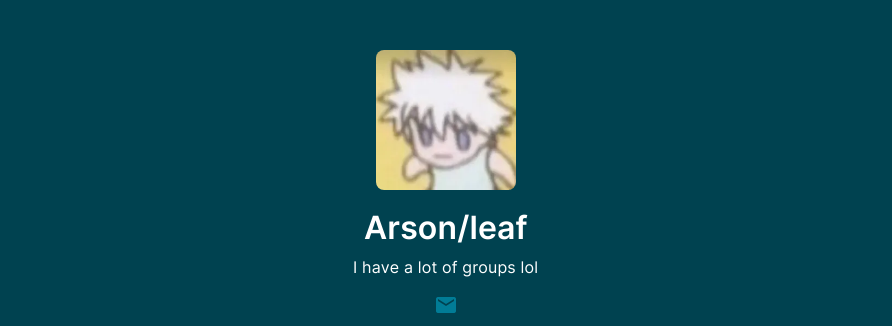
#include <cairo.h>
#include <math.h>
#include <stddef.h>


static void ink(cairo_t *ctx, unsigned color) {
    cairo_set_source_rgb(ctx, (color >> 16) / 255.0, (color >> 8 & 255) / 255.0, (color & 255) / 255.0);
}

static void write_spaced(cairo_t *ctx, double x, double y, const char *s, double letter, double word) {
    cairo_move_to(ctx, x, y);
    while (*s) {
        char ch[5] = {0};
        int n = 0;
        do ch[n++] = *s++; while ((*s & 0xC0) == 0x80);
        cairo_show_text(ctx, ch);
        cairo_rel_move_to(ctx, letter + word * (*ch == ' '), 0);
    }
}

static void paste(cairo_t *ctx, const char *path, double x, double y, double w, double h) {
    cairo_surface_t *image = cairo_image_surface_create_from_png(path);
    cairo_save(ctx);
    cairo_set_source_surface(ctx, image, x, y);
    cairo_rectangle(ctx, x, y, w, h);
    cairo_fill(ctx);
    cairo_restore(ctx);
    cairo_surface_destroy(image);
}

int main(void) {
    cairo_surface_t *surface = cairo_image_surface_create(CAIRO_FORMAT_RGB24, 892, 326);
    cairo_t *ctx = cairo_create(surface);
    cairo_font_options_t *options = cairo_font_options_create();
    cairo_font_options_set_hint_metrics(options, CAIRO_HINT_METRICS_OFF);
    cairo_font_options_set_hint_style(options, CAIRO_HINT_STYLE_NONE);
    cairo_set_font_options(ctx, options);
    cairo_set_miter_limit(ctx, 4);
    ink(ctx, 0x004250);
    cairo_paint(ctx);
    paste(ctx, "media/1.png", 376, 50, 140, 140);
    cairo_select_font_face(ctx, "Inter SemiBold", CAIRO_FONT_SLANT_NORMAL, CAIRO_FONT_WEIGHT_NORMAL);
    cairo_set_font_size(ctx, 32);
    ink(ctx, 0xFFFFFF);
    write_spaced(ctx, 364, 239, "Arson/leaf", 0.15, 0);
    cairo_select_font_face(ctx, "Inter", CAIRO_FONT_SLANT_NORMAL, CAIRO_FONT_WEIGHT_NORMAL);
    cairo_set_font_size(ctx, 16);
    write_spaced(ctx, 353, 273, "I have a lot of groups lol", 0.15, 0);
    paste(ctx, "media/2.png", 436, 297, 20, 16);
    cairo_surface_write_to_png(surface, "image.png");
    cairo_font_options_destroy(options);
    cairo_destroy(ctx);
    cairo_surface_destroy(surface);
    return 0;
}
